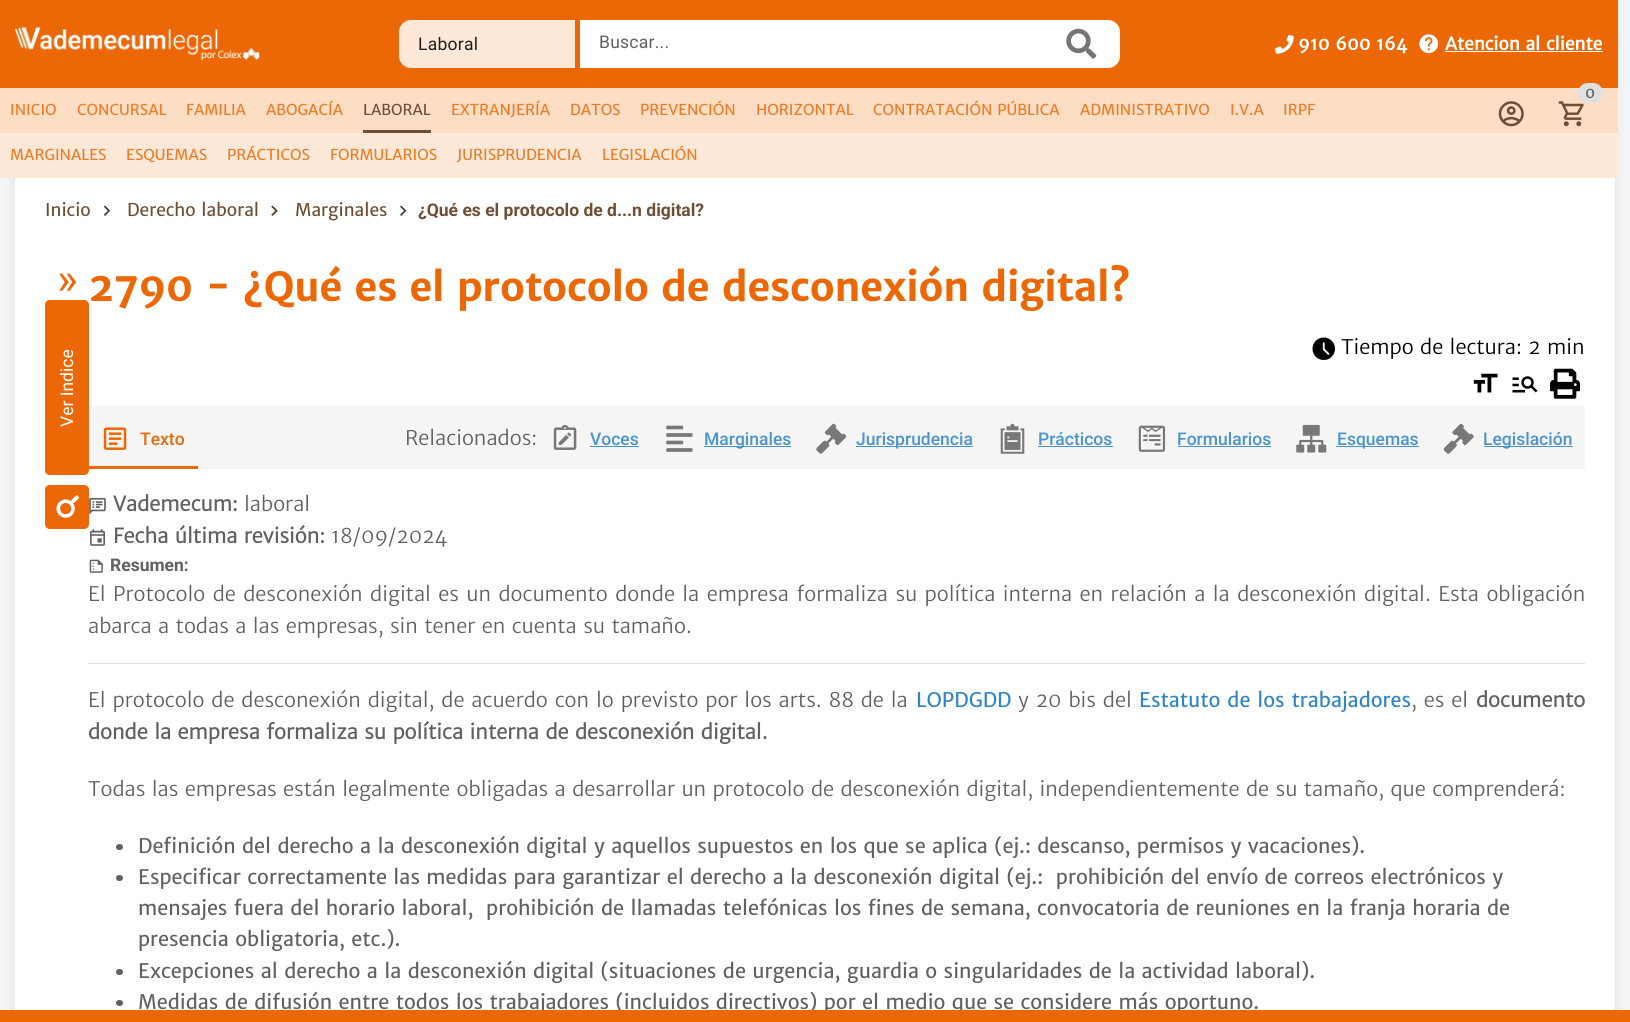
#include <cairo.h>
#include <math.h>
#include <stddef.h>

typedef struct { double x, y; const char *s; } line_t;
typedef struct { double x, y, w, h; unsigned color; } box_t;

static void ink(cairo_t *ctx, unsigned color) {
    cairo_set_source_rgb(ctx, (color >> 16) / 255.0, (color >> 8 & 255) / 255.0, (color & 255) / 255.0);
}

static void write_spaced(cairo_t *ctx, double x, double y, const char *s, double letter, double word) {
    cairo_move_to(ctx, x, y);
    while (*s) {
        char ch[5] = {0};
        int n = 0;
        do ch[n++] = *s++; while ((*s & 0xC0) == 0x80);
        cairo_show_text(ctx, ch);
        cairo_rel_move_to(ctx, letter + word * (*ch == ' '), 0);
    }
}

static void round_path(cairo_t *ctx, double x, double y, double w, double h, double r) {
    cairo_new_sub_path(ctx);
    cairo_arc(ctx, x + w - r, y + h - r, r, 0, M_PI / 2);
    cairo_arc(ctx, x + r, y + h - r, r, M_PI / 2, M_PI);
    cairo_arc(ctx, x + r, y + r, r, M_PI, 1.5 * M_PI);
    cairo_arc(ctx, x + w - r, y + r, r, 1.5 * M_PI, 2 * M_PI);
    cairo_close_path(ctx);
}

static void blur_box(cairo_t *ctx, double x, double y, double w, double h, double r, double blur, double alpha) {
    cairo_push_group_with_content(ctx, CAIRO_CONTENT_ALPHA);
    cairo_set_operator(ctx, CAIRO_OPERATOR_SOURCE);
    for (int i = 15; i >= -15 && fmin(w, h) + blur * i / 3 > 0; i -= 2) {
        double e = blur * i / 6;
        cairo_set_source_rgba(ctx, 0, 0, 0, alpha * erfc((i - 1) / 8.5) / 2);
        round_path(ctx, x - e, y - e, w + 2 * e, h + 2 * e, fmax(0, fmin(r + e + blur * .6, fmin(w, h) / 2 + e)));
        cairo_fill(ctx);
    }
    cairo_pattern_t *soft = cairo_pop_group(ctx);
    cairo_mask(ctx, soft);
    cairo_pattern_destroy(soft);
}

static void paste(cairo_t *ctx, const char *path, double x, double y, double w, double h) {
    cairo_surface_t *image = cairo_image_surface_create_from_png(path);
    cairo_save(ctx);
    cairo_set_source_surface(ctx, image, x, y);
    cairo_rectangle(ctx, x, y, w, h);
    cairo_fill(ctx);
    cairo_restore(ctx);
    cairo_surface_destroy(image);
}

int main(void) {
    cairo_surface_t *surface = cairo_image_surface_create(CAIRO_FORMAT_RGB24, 1630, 1022);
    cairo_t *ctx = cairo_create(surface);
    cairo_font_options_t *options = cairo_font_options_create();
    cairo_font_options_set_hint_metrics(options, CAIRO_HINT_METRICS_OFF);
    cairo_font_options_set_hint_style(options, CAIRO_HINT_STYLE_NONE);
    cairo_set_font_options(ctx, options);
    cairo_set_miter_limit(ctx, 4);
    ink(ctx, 0xF5F5F5);
    cairo_paint(ctx);
    ink(ctx, 0x000000);
    blur_box(ctx, 15, 0, 1600, 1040, 0, 6, 0.1);
    ink(ctx, 0xEC6806);
    cairo_rectangle(ctx, 0, 0, 1618, 88);
    cairo_fill(ctx);
    paste(ctx, "media/1.png", 15, 27, 245, 33);
    ink(ctx, 0xFEE8D7);
    cairo_new_path(ctx);
    cairo_move_to(ctx, 411, 19.5);
    cairo_line_to(ctx, 575.5, 19.5);
    cairo_line_to(ctx, 575.5, 68.5);
    cairo_line_to(ctx, 411, 68.5);
    cairo_curve_to(ctx, 404, 68.5, 398.5, 63, 398.5, 56);
    cairo_line_to(ctx, 398.5, 32);
    cairo_curve_to(ctx, 398.5, 25, 404, 19.5, 411, 19.5);
    cairo_close_path(ctx);
    cairo_fill_preserve(ctx);
    ink(ctx, 0xEC6806);
    cairo_set_line_width(ctx, 1);
    cairo_stroke(ctx);
    cairo_select_font_face(ctx, "Roboto", CAIRO_FONT_SLANT_NORMAL, CAIRO_FONT_WEIGHT_NORMAL);
    cairo_set_font_size(ctx, 17.5);
    ink(ctx, 0x211E1C);
    write_spaced(ctx, 418, 50, "Laboral", 0.25, 0);
    ink(ctx, 0xFFFFFF);
    cairo_new_path(ctx);
    cairo_move_to(ctx, 579.5, 19.5);
    cairo_line_to(ctx, 1108, 19.5);
    cairo_curve_to(ctx, 1115, 19.5, 1120.5, 25, 1120.5, 32);
    cairo_line_to(ctx, 1120.5, 56);
    cairo_curve_to(ctx, 1120.5, 63, 1115, 68.5, 1108, 68.5);
    cairo_line_to(ctx, 579.5, 68.5);
    cairo_close_path(ctx);
    cairo_fill_preserve(ctx);
    ink(ctx, 0xEC6806);
    cairo_stroke(ctx);
    ink(ctx, 0x616161);
    write_spaced(ctx, 599, 48, "Buscar...", 0.25, 0);
    paste(ctx, "media/2.png", 1066, 28, 31, 31);
    paste(ctx, "media/3.png", 1275, 35, 19, 19);
    cairo_select_font_face(ctx, "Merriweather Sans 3", CAIRO_FONT_SLANT_NORMAL, CAIRO_FONT_WEIGHT_BOLD);
    ink(ctx, 0xFFFFFF);
    cairo_move_to(ctx, 1298, 50);
    cairo_show_text(ctx, "910 600 164");
    paste(ctx, "media/4.png", 1419, 34, 20, 20);
    cairo_move_to(ctx, 1445, 50);
    cairo_show_text(ctx, "Atencion al cliente");
    cairo_rectangle(ctx, 1445, 51, 158, 1);
    cairo_fill(ctx);
    ink(ctx, 0xFDDDC3);
    cairo_rectangle(ctx, 0, 88, 1618, 45);
    cairo_fill(ctx);
    paste(ctx, "media/5.png", 1558, 101, 26, 26);
    ink(ctx, 0xE0E0E0);
    round_path(ctx, 1578, 83, 25, 20, 10);
    cairo_fill(ctx);
    cairo_select_font_face(ctx, "Merriweather Sans", CAIRO_FONT_SLANT_NORMAL, CAIRO_FONT_WEIGHT_NORMAL);
    cairo_set_font_size(ctx, 15);
    ink(ctx, 0x616161);
    cairo_move_to(ctx, 1585, 98);
    cairo_show_text(ctx, "0");
    paste(ctx, "media/6.png", 1498, 101, 26, 26);
    ink(ctx, 0xEF7A22);
    {
        static const line_t items[] = {
            {10, 115, "INICIO"},
            {77, 115, "CONCURSAL"},
            {186, 115, "FAMILIA"},
            {266, 115, "ABOGACÍA"},
        };
        for (size_t i = 0; i < sizeof items / sizeof *items; i++) {
            cairo_move_to(ctx, items[i].x, items[i].y);
            cairo_show_text(ctx, items[i].s);
        }
    }
    ink(ctx, 0x704E34);
    cairo_move_to(ctx, 363, 115);
    cairo_show_text(ctx, "LABORAL");
    cairo_rectangle(ctx, 363, 130, 68, 3);
    cairo_fill(ctx);
    ink(ctx, 0xEF7A22);
    {
        static const line_t items[] = {
            {451, 115, "EXTRANJERÍA"},
            {570, 115, "DATOS"},
            {640, 115, "PREVENCIÓN"},
            {756, 115, "HORIZONTAL"},
            {873, 115, "CONTRATACIÓN PÚBLICA"},
            {1080, 115, "ADMINISTRATIVO"},
            {1230, 115, "I.V.A"},
            {1283, 115, "IRPF"},
        };
        for (size_t i = 0; i < sizeof items / sizeof *items; i++) {
            cairo_move_to(ctx, items[i].x, items[i].y);
            cairo_show_text(ctx, items[i].s);
        }
    }
    ink(ctx, 0xFEE8D7);
    cairo_rectangle(ctx, 0, 133, 1618, 45);
    cairo_fill(ctx);
    ink(ctx, 0xEF7A22);
    {
        static const line_t items[] = {
            {10, 160, "MARGINALES"},
            {126, 160, "ESQUEMAS"},
            {227, 160, "PRÁCTICOS"},
            {330, 160, "FORMULARIOS"},
            {457, 160, "JURISPRUDENCIA"},
            {602, 160, "LEGISLACIÓN"},
        };
        for (size_t i = 0; i < sizeof items / sizeof *items; i++) {
            cairo_move_to(ctx, items[i].x, items[i].y);
            cairo_show_text(ctx, items[i].s);
        }
    }
    ink(ctx, 0xFFFFFF);
    cairo_rectangle(ctx, 15, 178, 1600, 832);
    cairo_fill(ctx);
    cairo_set_font_size(ctx, 17.5);
    ink(ctx, 0x704E34);
    cairo_move_to(ctx, 45, 216);
    cairo_show_text(ctx, "Inicio");
    paste(ctx, "media/7.png", 103, 205, 8, 11);
    cairo_move_to(ctx, 127, 216);
    cairo_show_text(ctx, "Derecho laboral");
    paste(ctx, "media/8.png", 271, 205, 7, 11);
    cairo_move_to(ctx, 295, 216);
    cairo_show_text(ctx, "Marginales");
    paste(ctx, "media/9.png", 400, 205, 7, 11);
    cairo_select_font_face(ctx, "Roboto", CAIRO_FONT_SLANT_NORMAL, CAIRO_FONT_WEIGHT_BOLD);
    cairo_move_to(ctx, 418, 216);
    cairo_show_text(ctx, "¿Qué es el protocolo de d...n digital?");
    cairo_select_font_face(ctx, "Roboto", CAIRO_FONT_SLANT_NORMAL, CAIRO_FONT_WEIGHT_NORMAL);
    cairo_set_font_size(ctx, 44);
    ink(ctx, 0xEC6806);
    cairo_move_to(ctx, 57, 294);
    cairo_show_text(ctx, "»");
    cairo_save(ctx);
    cairo_rectangle(ctx, 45, 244, 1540, 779);
    cairo_clip(ctx);
    ink(ctx, 0x000000);
    blur_box(ctx, 88, 410, 1497, 60, 0, 3, 0.2);
    cairo_restore(ctx);
    {
        static const box_t items[] = {
            {89, 409, 1496, 60, 0xF5F5F5},
            {88, 466, 110, 3, 0xEC6806},
            {88, 469, 1497, 6, 0xFFFFFF},
        };
        for (size_t i = 0; i < sizeof items / sizeof *items; i++) {
            ink(ctx, items[i].color);
            cairo_rectangle(ctx, items[i].x, items[i].y, items[i].w, items[i].h);
            cairo_fill(ctx);
        }
    }
    ink(ctx, 0xEC6806);
    cairo_new_path(ctx);
    cairo_move_to(ctx, 45, 470);
    cairo_line_to(ctx, 45, 305);
    cairo_curve_to(ctx, 45, 302, 47, 300, 50, 300);
    cairo_line_to(ctx, 84, 300);
    cairo_curve_to(ctx, 87, 300, 89, 302, 89, 305);
    cairo_line_to(ctx, 89, 470);
    cairo_curve_to(ctx, 89, 473, 87, 475, 84, 475);
    cairo_line_to(ctx, 50, 475);
    cairo_curve_to(ctx, 47, 475, 45, 473, 45, 470);
    cairo_close_path(ctx);
    cairo_fill(ctx);
    cairo_set_font_size(ctx, 17.5);
    ink(ctx, 0xFFFFFF);
    cairo_save(ctx);
    cairo_translate(ctx, 73, 427);
    cairo_rotate(ctx, -90 * M_PI / 180);
    cairo_move_to(ctx, 0, 0);
    cairo_show_text(ctx, "Ver Indice");
    cairo_restore(ctx);
    ink(ctx, 0xEC6806);
    cairo_new_path(ctx);
    cairo_move_to(ctx, 45, 524);
    cairo_line_to(ctx, 45, 490);
    cairo_curve_to(ctx, 45, 487, 47, 485, 50, 485);
    cairo_line_to(ctx, 84, 485);
    cairo_curve_to(ctx, 87, 485, 89, 487, 89, 490);
    cairo_line_to(ctx, 89, 524);
    cairo_curve_to(ctx, 89, 527, 87, 529, 84, 529);
    cairo_line_to(ctx, 50, 529);
    cairo_curve_to(ctx, 47, 529, 45, 527, 45, 524);
    cairo_close_path(ctx);
    cairo_fill(ctx);
    paste(ctx, "media/10.png", 56, 495, 23, 23);
    cairo_select_font_face(ctx, "Merriweather Sans", CAIRO_FONT_SLANT_NORMAL, CAIRO_FONT_WEIGHT_BOLD);
    cairo_set_font_size(ctx, 40);
    write_spaced(ctx, 88, 301, "2790 - ¿Qué es el protocolo de desconexión digital?", -0.62, 0);
    paste(ctx, "media/11.png", 1312, 337, 23, 23);
    cairo_select_font_face(ctx, "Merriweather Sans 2", CAIRO_FONT_SLANT_NORMAL, CAIRO_FONT_WEIGHT_NORMAL);
    cairo_set_font_size(ctx, 20);
    ink(ctx, 0x000000);
    cairo_move_to(ctx, 1341, 354);
    cairo_show_text(ctx, "Tiempo de lectura: 2 min");
    paste(ctx, "media/12.png", 1473, 373, 25, 20);
    paste(ctx, "media/13.png", 1512, 376, 26, 17);
    paste(ctx, "media/14.png", 1550, 368, 30, 31);
    paste(ctx, "media/15.png", 103, 427, 24, 23);
    cairo_select_font_face(ctx, "Roboto Medium", CAIRO_FONT_SLANT_NORMAL, CAIRO_FONT_WEIGHT_NORMAL);
    cairo_set_font_size(ctx, 17.5);
    ink(ctx, 0xEC6806);
    cairo_move_to(ctx, 140, 445);
    cairo_show_text(ctx, "Texto");
    cairo_select_font_face(ctx, "Merriweather Sans 2", CAIRO_FONT_SLANT_NORMAL, CAIRO_FONT_WEIGHT_NORMAL);
    cairo_set_font_size(ctx, 20);
    ink(ctx, 0x616161);
    cairo_move_to(ctx, 405, 445);
    cairo_show_text(ctx, "Relacionados:");
    paste(ctx, "media/16.png", 553, 425, 24, 25);
    cairo_select_font_face(ctx, "Roboto Medium", CAIRO_FONT_SLANT_NORMAL, CAIRO_FONT_WEIGHT_NORMAL);
    cairo_set_font_size(ctx, 17.5);
    ink(ctx, 0x4B95CF);
    cairo_move_to(ctx, 590, 445);
    cairo_show_text(ctx, "Voces");
    cairo_rectangle(ctx, 590, 446, 49, 1);
    cairo_fill(ctx);
    paste(ctx, "media/17.png", 666, 425, 27, 27);
    cairo_rectangle(ctx, 704, 446, 87, 1);
    cairo_fill(ctx);
    cairo_move_to(ctx, 704, 445);
    cairo_show_text(ctx, "Marginales");
    paste(ctx, "media/18.png", 816, 423, 31, 31);
    cairo_rectangle(ctx, 856, 446, 117, 1);
    cairo_fill(ctx);
    cairo_move_to(ctx, 856, 445);
    cairo_show_text(ctx, "Jurisprudencia");
    paste(ctx, "media/19.png", 1000, 423, 25, 31);
    cairo_move_to(ctx, 1038, 445);
    cairo_show_text(ctx, "Prácticos");
    cairo_rectangle(ctx, 1038, 446, 75, 1);
    cairo_fill(ctx);
    paste(ctx, "media/20.png", 1138, 425, 28, 27);
    cairo_move_to(ctx, 1177, 445);
    cairo_show_text(ctx, "Formularios");
    cairo_rectangle(ctx, 1178, 446, 93, 1);
    cairo_fill(ctx);
    paste(ctx, "media/21.png", 1296, 424, 31, 29);
    cairo_rectangle(ctx, 1336, 446, 83, 1);
    cairo_fill(ctx);
    cairo_move_to(ctx, 1337, 445);
    cairo_show_text(ctx, "Esquemas");
    paste(ctx, "media/22.png", 1443, 423, 31, 31);
    cairo_rectangle(ctx, 1484, 446, 89, 1);
    cairo_fill(ctx);
    cairo_move_to(ctx, 1483, 445);
    cairo_show_text(ctx, "Legislación");
    paste(ctx, "media/23.png", 89, 497, 17, 18);
    cairo_select_font_face(ctx, "Merriweather Sans 2", CAIRO_FONT_SLANT_NORMAL, CAIRO_FONT_WEIGHT_BOLD);
    cairo_set_font_size(ctx, 20);
    ink(ctx, 0x616161);
    cairo_move_to(ctx, 113, 511);
    cairo_show_text(ctx, "Vademecum:");
    cairo_select_font_face(ctx, "Merriweather Sans 2", CAIRO_FONT_SLANT_NORMAL, CAIRO_FONT_WEIGHT_NORMAL);
    cairo_move_to(ctx, 244, 511);
    cairo_show_text(ctx, "laboral");
    paste(ctx, "media/24.png", 90, 529, 16, 17);
    cairo_select_font_face(ctx, "Merriweather Sans 2", CAIRO_FONT_SLANT_NORMAL, CAIRO_FONT_WEIGHT_BOLD);
    cairo_move_to(ctx, 113, 543);
    cairo_show_text(ctx, "Fecha última revisión:");
    cairo_select_font_face(ctx, "Merriweather Sans 2", CAIRO_FONT_SLANT_NORMAL, CAIRO_FONT_WEIGHT_NORMAL);
    cairo_move_to(ctx, 331, 543);
    cairo_show_text(ctx, "18/09/2024");
    paste(ctx, "media/25.png", 89, 559, 14, 14);
    cairo_select_font_face(ctx, "Roboto", CAIRO_FONT_SLANT_NORMAL, CAIRO_FONT_WEIGHT_BOLD);
    cairo_set_font_size(ctx, 17.5);
    cairo_move_to(ctx, 110, 571);
    cairo_show_text(ctx, "Resumen:");
    cairo_select_font_face(ctx, "Merriweather Sans 2", CAIRO_FONT_SLANT_NORMAL, CAIRO_FONT_WEIGHT_NORMAL);
    cairo_set_font_size(ctx, 20);
    write_spaced(ctx, 88, 601, "El Protocolo de desconexión digital es un documento donde la empresa formaliza su política interna en relación a la desconexión digital. Esta obligación", 0, 1);
    cairo_move_to(ctx, 88, 633);
    cairo_show_text(ctx, "abarca a todas a las empresas, sin tener en cuenta su tamaño.");
    ink(ctx, 0xE0E0E0);
    cairo_rectangle(ctx, 88, 663, 1497, 1);
    cairo_fill(ctx);
    ink(ctx, 0x616161);
    write_spaced(ctx, 88, 707, "El protocolo de desconexión digital, de acuerdo con", 0, 0.5);
    write_spaced(ctx, 596, 707, "lo previsto por los arts. 88 de la", 0, 0.5);
    cairo_select_font_face(ctx, "Merriweather Sans", CAIRO_FONT_SLANT_NORMAL, CAIRO_FONT_WEIGHT_NORMAL);
    ink(ctx, 0x2D84C8);
    cairo_move_to(ctx, 916, 707);
    cairo_show_text(ctx, "LOPDGDD");
    cairo_select_font_face(ctx, "Merriweather Sans 2", CAIRO_FONT_SLANT_NORMAL, CAIRO_FONT_WEIGHT_NORMAL);
    ink(ctx, 0x616161);
    write_spaced(ctx, 1018, 707, "y 20 bis del", 0, 0.5);
    cairo_select_font_face(ctx, "Merriweather Sans", CAIRO_FONT_SLANT_NORMAL, CAIRO_FONT_WEIGHT_NORMAL);
    ink(ctx, 0x2D84C8);
    write_spaced(ctx, 1139, 707, "Estatuto de los trabajadores", 0, 0.5);
    cairo_select_font_face(ctx, "Merriweather Sans 2", CAIRO_FONT_SLANT_NORMAL, CAIRO_FONT_WEIGHT_NORMAL);
    ink(ctx, 0x616161);
    write_spaced(ctx, 1411, 707, ", es el", 0, 0.5);
    cairo_select_font_face(ctx, "Merriweather Sans 2", CAIRO_FONT_SLANT_NORMAL, CAIRO_FONT_WEIGHT_BOLD);
    cairo_move_to(ctx, 1476, 707);
    cairo_show_text(ctx, "documento");
    cairo_move_to(ctx, 88, 739);
    cairo_show_text(ctx, "donde la empresa formaliza su política interna de desconexión digital.");
    cairo_select_font_face(ctx, "Merriweather Sans 2", CAIRO_FONT_SLANT_NORMAL, CAIRO_FONT_WEIGHT_NORMAL);
    cairo_move_to(ctx, 88, 796);
    cairo_show_text(ctx, "Todas las empresas están legalmente obligadas a desarrollar un protocolo de desconexión digital, independientemente de su tamaño, que comprenderá:");
    round_path(ctx, 116, 844, 7, 6, 3);
    cairo_fill(ctx);
    cairo_select_font_face(ctx, "Merriweather Sans", CAIRO_FONT_SLANT_NORMAL, CAIRO_FONT_WEIGHT_NORMAL);
    cairo_move_to(ctx, 138, 853);
    cairo_show_text(ctx, "Definición del derecho a la desconexión digital y aquellos supuestos en los que se aplica (ej.: descanso, permisos y vacaciones).");
    round_path(ctx, 116, 875, 7, 6, 3);
    cairo_fill(ctx);
    {
        static const line_t items[] = {
            {138, 884, "Especificar correctamente las medidas para garantizar el derecho a la desconexión digital (ej.:  prohibición del envío de correos electrónicos y"},
            {138, 915, "mensajes fuera del horario laboral,  prohibición de llamadas telefónicas los fines de semana, convocatoria de reuniones en la franja horaria de"},
            {138, 946, "presencia obligatoria, etc.)."},
        };
        for (size_t i = 0; i < sizeof items / sizeof *items; i++) {
            cairo_move_to(ctx, items[i].x, items[i].y);
            cairo_show_text(ctx, items[i].s);
        }
    }
    round_path(ctx, 116, 969, 7, 6, 3);
    cairo_fill(ctx);
    cairo_move_to(ctx, 138, 978);
    cairo_show_text(ctx, "Excepciones al derecho a la desconexión digital (situaciones de urgencia, guardia o singularidades de la actividad laboral).");
    round_path(ctx, 116, 1000, 7, 6, 3);
    cairo_fill(ctx);
    cairo_move_to(ctx, 138, 1009);
    cairo_show_text(ctx, "Medidas de difusión entre todos los trabajadores (incluidos directivos) por el medio que se considere más oportuno.");
    ink(ctx, 0xEC6806);
    cairo_rectangle(ctx, 0, 1010, 1630, 12);
    cairo_fill(ctx);
    cairo_surface_write_to_png(surface, "image.png");
    cairo_font_options_destroy(options);
    cairo_destroy(ctx);
    cairo_surface_destroy(surface);
    return 0;
}
